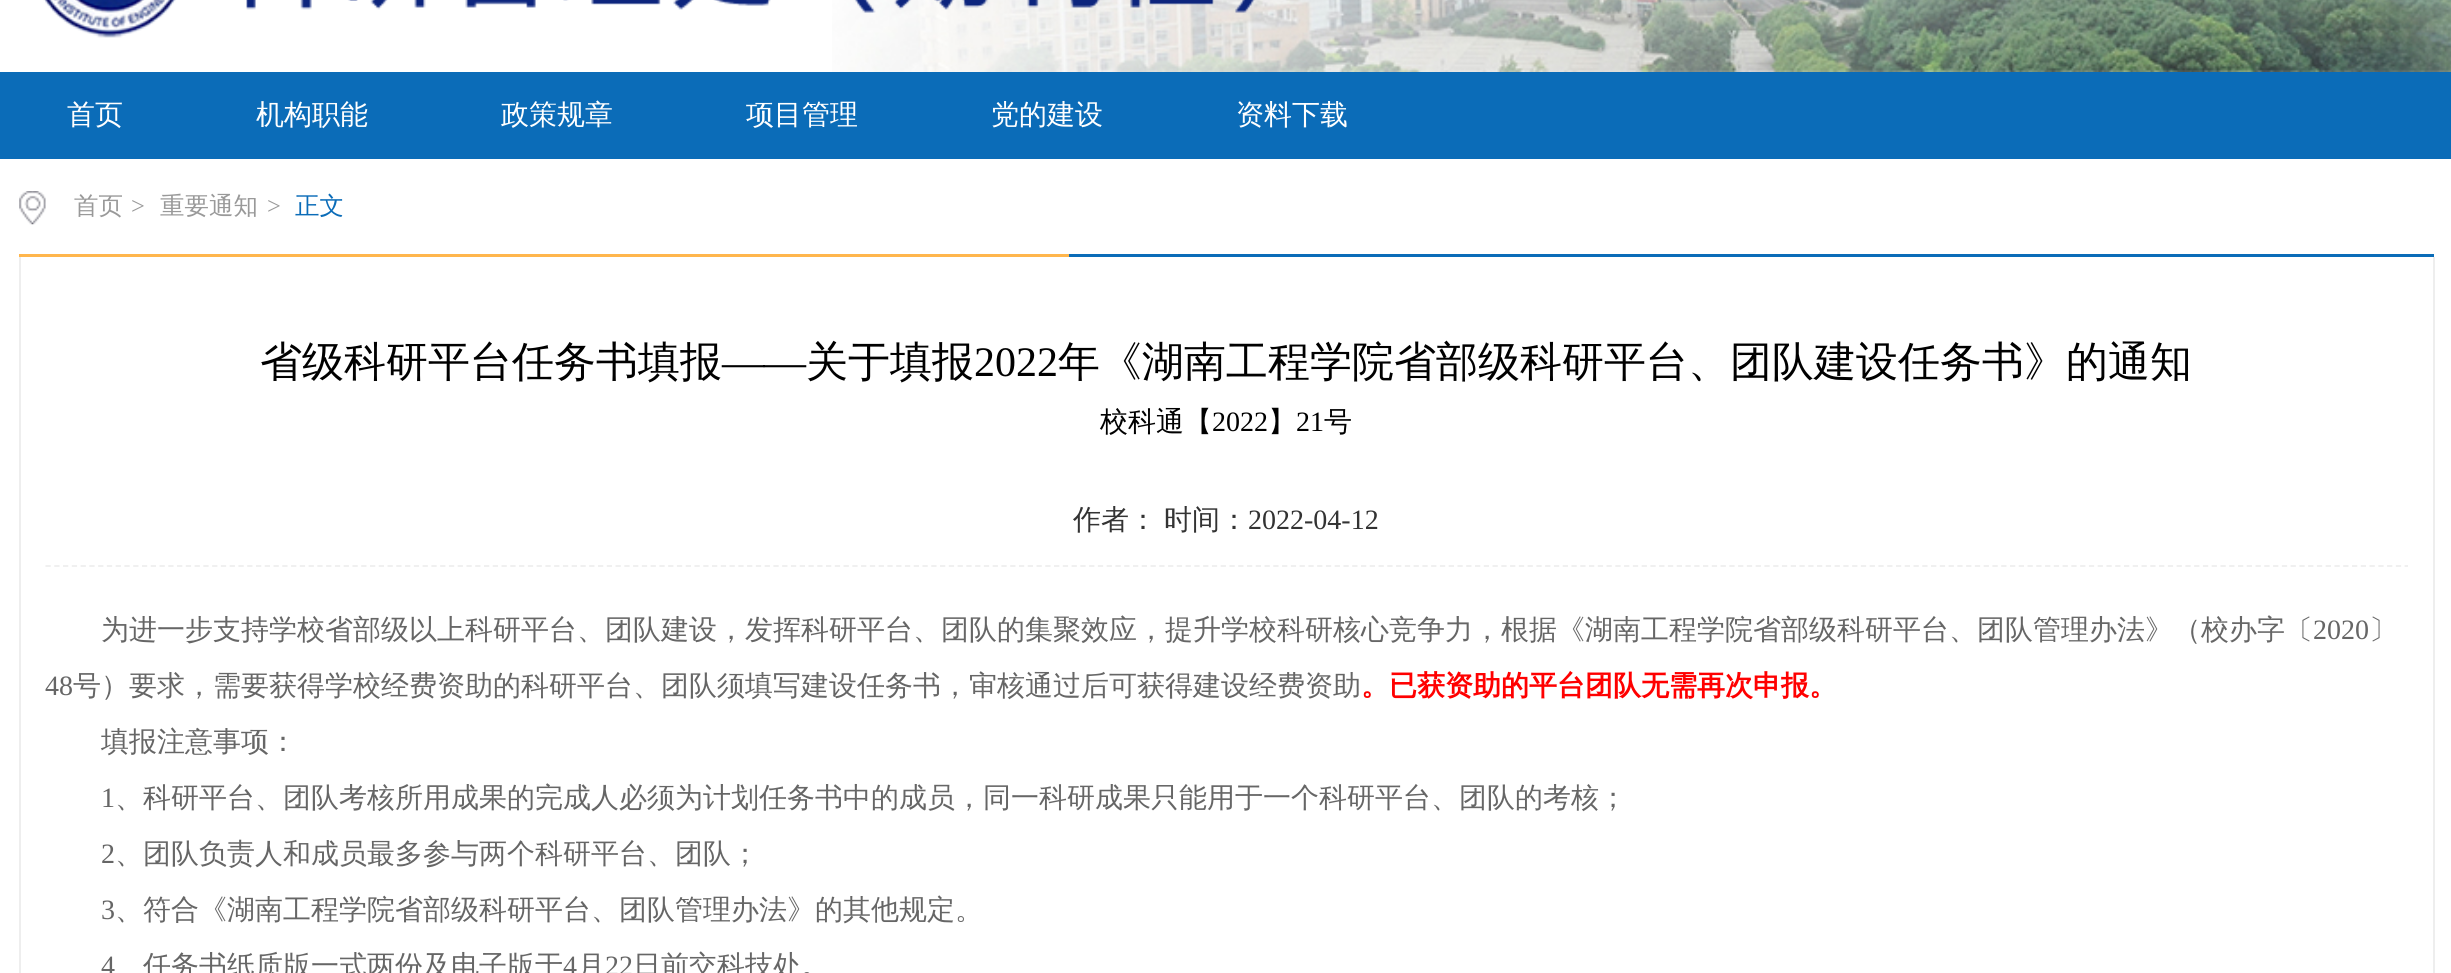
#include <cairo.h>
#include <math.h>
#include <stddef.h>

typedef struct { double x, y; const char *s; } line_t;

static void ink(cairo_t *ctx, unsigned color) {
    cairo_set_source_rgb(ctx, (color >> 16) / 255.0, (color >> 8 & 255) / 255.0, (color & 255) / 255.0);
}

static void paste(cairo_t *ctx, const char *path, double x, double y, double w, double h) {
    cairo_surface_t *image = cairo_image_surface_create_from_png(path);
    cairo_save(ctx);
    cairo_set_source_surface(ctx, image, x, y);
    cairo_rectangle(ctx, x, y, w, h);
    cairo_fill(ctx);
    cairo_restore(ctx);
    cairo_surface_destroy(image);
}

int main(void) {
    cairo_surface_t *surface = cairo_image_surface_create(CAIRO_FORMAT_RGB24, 2451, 973);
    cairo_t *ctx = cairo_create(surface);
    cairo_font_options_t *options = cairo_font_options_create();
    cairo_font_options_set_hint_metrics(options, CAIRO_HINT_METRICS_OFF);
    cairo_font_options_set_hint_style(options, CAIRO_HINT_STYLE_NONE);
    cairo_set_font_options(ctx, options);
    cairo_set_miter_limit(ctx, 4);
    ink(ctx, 0xFFFFFF);
    cairo_paint(ctx);
    paste(ctx, "media/1.png", 832, 0, 1619, 72);
    paste(ctx, "media/2.png", 43, 0, 1212, 38);
    ink(ctx, 0x0B6CB8);
    cairo_rectangle(ctx, 0, 72, 2451, 87);
    cairo_fill(ctx);
    cairo_select_font_face(ctx, "WenQuanYi Zen Hei Medium", CAIRO_FONT_SLANT_NORMAL, CAIRO_FONT_WEIGHT_NORMAL);
    cairo_set_font_size(ctx, 28);
    ink(ctx, 0xFFFFFF);
    {
        static const line_t items[] = {
            {67, 124, "首页"},
            {256, 124, "机构职能"},
            {501, 124, "政策规章"},
            {746, 124, "项目管理"},
            {991, 124, "党的建设"},
            {1236, 124, "资料下载"},
        };
        for (size_t i = 0; i < sizeof items / sizeof *items; i++) {
            cairo_move_to(ctx, items[i].x, items[i].y);
            cairo_show_text(ctx, items[i].s);
        }
    }
    ink(ctx, 0x0B6CB8);
    cairo_rectangle(ctx, 1069, 254, 1365, 3);
    cairo_fill(ctx);
    ink(ctx, 0xFFB64D);
    cairo_rectangle(ctx, 19, 254, 1050, 3);
    cairo_fill(ctx);
    paste(ctx, "media/3.png", 19, 191, 27, 34);
    cairo_set_font_size(ctx, 24.5);
    ink(ctx, 0x999999);
    cairo_move_to(ctx, 74, 214);
    cairo_show_text(ctx, "首页");
    cairo_select_font_face(ctx, "Liberation Serif", CAIRO_FONT_SLANT_NORMAL, CAIRO_FONT_WEIGHT_NORMAL);
    cairo_move_to(ctx, 131, 214);
    cairo_show_text(ctx, ">");
    cairo_select_font_face(ctx, "WenQuanYi Zen Hei Medium", CAIRO_FONT_SLANT_NORMAL, CAIRO_FONT_WEIGHT_NORMAL);
    cairo_move_to(ctx, 160, 214);
    cairo_show_text(ctx, "重要通知");
    cairo_select_font_face(ctx, "Liberation Serif", CAIRO_FONT_SLANT_NORMAL, CAIRO_FONT_WEIGHT_NORMAL);
    cairo_move_to(ctx, 267, 214);
    cairo_show_text(ctx, ">");
    cairo_select_font_face(ctx, "WenQuanYi Zen Hei Medium", CAIRO_FONT_SLANT_NORMAL, CAIRO_FONT_WEIGHT_NORMAL);
    ink(ctx, 0x0B6CB8);
    cairo_move_to(ctx, 295, 214);
    cairo_show_text(ctx, "正文");
    ink(ctx, 0xEEEEEE);
    cairo_rectangle(ctx, 2433, 257, 2, 716);
    cairo_fill(ctx);
    cairo_rectangle(ctx, 19, 257, 2, 716);
    cairo_fill(ctx);
    cairo_new_path(ctx);
    cairo_move_to(ctx, 45.5, 566);
    cairo_line_to(ctx, 2408, 566);
    cairo_set_line_width(ctx, 1.8);
    cairo_set_dash(ctx, (double[]){5.25, 3.52}, 2, 0);
    cairo_stroke(ctx);
    cairo_set_font_size(ctx, 42);
    ink(ctx, 0x000000);
    cairo_move_to(ctx, 260, 376);
    cairo_show_text(ctx, "省级科研平台任务书填报");
    cairo_select_font_face(ctx, "Liberation Serif", CAIRO_FONT_SLANT_NORMAL, CAIRO_FONT_WEIGHT_NORMAL);
    cairo_move_to(ctx, 722, 376);
    cairo_show_text(ctx, "——");
    cairo_select_font_face(ctx, "WenQuanYi Zen Hei Medium", CAIRO_FONT_SLANT_NORMAL, CAIRO_FONT_WEIGHT_NORMAL);
    cairo_move_to(ctx, 806, 376);
    cairo_show_text(ctx, "关于填报");
    cairo_select_font_face(ctx, "Liberation Serif", CAIRO_FONT_SLANT_NORMAL, CAIRO_FONT_WEIGHT_NORMAL);
    cairo_move_to(ctx, 974, 376);
    cairo_show_text(ctx, "2022");
    cairo_select_font_face(ctx, "WenQuanYi Zen Hei Medium", CAIRO_FONT_SLANT_NORMAL, CAIRO_FONT_WEIGHT_NORMAL);
    cairo_move_to(ctx, 1058, 376);
    cairo_show_text(ctx, "年《湖南工程学院省部级科研平台、团队建设任务书》的通知");
    cairo_set_font_size(ctx, 28);
    cairo_move_to(ctx, 1100, 431);
    cairo_show_text(ctx, "校科通【");
    cairo_select_font_face(ctx, "Liberation Serif", CAIRO_FONT_SLANT_NORMAL, CAIRO_FONT_WEIGHT_NORMAL);
    cairo_move_to(ctx, 1212, 431);
    cairo_show_text(ctx, "2022");
    cairo_select_font_face(ctx, "WenQuanYi Zen Hei Medium", CAIRO_FONT_SLANT_NORMAL, CAIRO_FONT_WEIGHT_NORMAL);
    cairo_move_to(ctx, 1268, 431);
    cairo_show_text(ctx, "】");
    cairo_select_font_face(ctx, "Liberation Serif", CAIRO_FONT_SLANT_NORMAL, CAIRO_FONT_WEIGHT_NORMAL);
    cairo_move_to(ctx, 1296, 431);
    cairo_show_text(ctx, "21");
    cairo_select_font_face(ctx, "WenQuanYi Zen Hei Medium", CAIRO_FONT_SLANT_NORMAL, CAIRO_FONT_WEIGHT_NORMAL);
    cairo_move_to(ctx, 1324, 431);
    cairo_show_text(ctx, "号");
    ink(ctx, 0x333333);
    cairo_move_to(ctx, 1073, 529);
    cairo_show_text(ctx, "作者：");
    cairo_move_to(ctx, 1164, 529);
    cairo_show_text(ctx, "时间：");
    cairo_select_font_face(ctx, "Liberation Serif", CAIRO_FONT_SLANT_NORMAL, CAIRO_FONT_WEIGHT_NORMAL);
    cairo_move_to(ctx, 1248, 529);
    cairo_show_text(ctx, "2022-04-12");
    cairo_select_font_face(ctx, "WenQuanYi Zen Hei Medium", CAIRO_FONT_SLANT_NORMAL, CAIRO_FONT_WEIGHT_NORMAL);
    ink(ctx, 0x666666);
    cairo_move_to(ctx, 101, 639);
    cairo_show_text(ctx, "为进一步支持学校省部级以上科研平台、团队建设，发挥科研平台、团队的集聚效应，提升学校科研核心竞争力，根据《湖南工程学院省部级科研平台、团队管理办法》（校办字〔");
    cairo_select_font_face(ctx, "Liberation Serif", CAIRO_FONT_SLANT_NORMAL, CAIRO_FONT_WEIGHT_NORMAL);
    cairo_move_to(ctx, 2313, 639);
    cairo_show_text(ctx, "2020");
    cairo_select_font_face(ctx, "WenQuanYi Zen Hei Medium", CAIRO_FONT_SLANT_NORMAL, CAIRO_FONT_WEIGHT_NORMAL);
    cairo_move_to(ctx, 2369, 639);
    cairo_show_text(ctx, "〕");
    cairo_select_font_face(ctx, "Liberation Serif", CAIRO_FONT_SLANT_NORMAL, CAIRO_FONT_WEIGHT_NORMAL);
    cairo_move_to(ctx, 45, 695);
    cairo_show_text(ctx, "48");
    cairo_select_font_face(ctx, "WenQuanYi Zen Hei Medium", CAIRO_FONT_SLANT_NORMAL, CAIRO_FONT_WEIGHT_NORMAL);
    cairo_move_to(ctx, 73, 695);
    cairo_show_text(ctx, "号）要求，需要获得学校经费资助的科研平台、团队须填写建设任务书，审核通过后可获得建设经费资助");
    cairo_select_font_face(ctx, "WenQuanYi Zen Hei", CAIRO_FONT_SLANT_NORMAL, CAIRO_FONT_WEIGHT_BOLD);
    ink(ctx, 0xFF0000);
    cairo_move_to(ctx, 1361, 695);
    cairo_show_text(ctx, "。已获资助的平台团队无需再次申报。");
    cairo_select_font_face(ctx, "WenQuanYi Zen Hei Medium", CAIRO_FONT_SLANT_NORMAL, CAIRO_FONT_WEIGHT_NORMAL);
    ink(ctx, 0x666666);
    cairo_move_to(ctx, 101, 751);
    cairo_show_text(ctx, "填报注意事项：");
    cairo_select_font_face(ctx, "Liberation Serif", CAIRO_FONT_SLANT_NORMAL, CAIRO_FONT_WEIGHT_NORMAL);
    cairo_move_to(ctx, 101, 807);
    cairo_show_text(ctx, "1");
    cairo_select_font_face(ctx, "WenQuanYi Zen Hei Medium", CAIRO_FONT_SLANT_NORMAL, CAIRO_FONT_WEIGHT_NORMAL);
    cairo_move_to(ctx, 115, 807);
    cairo_show_text(ctx, "、科研平台、团队考核所用成果的完成人必须为计划任务书中的成员，同一科研成果只能用于一个科研平台、团队的考核；");
    cairo_select_font_face(ctx, "Liberation Serif", CAIRO_FONT_SLANT_NORMAL, CAIRO_FONT_WEIGHT_NORMAL);
    cairo_move_to(ctx, 101, 863);
    cairo_show_text(ctx, "2");
    cairo_select_font_face(ctx, "WenQuanYi Zen Hei Medium", CAIRO_FONT_SLANT_NORMAL, CAIRO_FONT_WEIGHT_NORMAL);
    cairo_move_to(ctx, 115, 863);
    cairo_show_text(ctx, "、团队负责人和成员最多参与两个科研平台、团队；");
    cairo_select_font_face(ctx, "Liberation Serif", CAIRO_FONT_SLANT_NORMAL, CAIRO_FONT_WEIGHT_NORMAL);
    cairo_move_to(ctx, 101, 919);
    cairo_show_text(ctx, "3");
    cairo_select_font_face(ctx, "WenQuanYi Zen Hei Medium", CAIRO_FONT_SLANT_NORMAL, CAIRO_FONT_WEIGHT_NORMAL);
    cairo_move_to(ctx, 115, 919);
    cairo_show_text(ctx, "、符合《湖南工程学院省部级科研平台、团队管理办法》的其他规定。");
    cairo_select_font_face(ctx, "Liberation Serif", CAIRO_FONT_SLANT_NORMAL, CAIRO_FONT_WEIGHT_NORMAL);
    cairo_move_to(ctx, 101, 975);
    cairo_show_text(ctx, "4");
    cairo_select_font_face(ctx, "WenQuanYi Zen Hei Medium", CAIRO_FONT_SLANT_NORMAL, CAIRO_FONT_WEIGHT_NORMAL);
    cairo_move_to(ctx, 143, 975);
    cairo_show_text(ctx, "任务书纸质版一式两份及电子版于");
    cairo_select_font_face(ctx, "Liberation Serif", CAIRO_FONT_SLANT_NORMAL, CAIRO_FONT_WEIGHT_NORMAL);
    cairo_move_to(ctx, 563, 975);
    cairo_show_text(ctx, "4");
    cairo_select_font_face(ctx, "WenQuanYi Zen Hei Medium", CAIRO_FONT_SLANT_NORMAL, CAIRO_FONT_WEIGHT_NORMAL);
    cairo_move_to(ctx, 577, 975);
    cairo_show_text(ctx, "月");
    cairo_select_font_face(ctx, "Liberation Serif", CAIRO_FONT_SLANT_NORMAL, CAIRO_FONT_WEIGHT_NORMAL);
    cairo_move_to(ctx, 605, 975);
    cairo_show_text(ctx, "22");
    cairo_select_font_face(ctx, "WenQuanYi Zen Hei Medium", CAIRO_FONT_SLANT_NORMAL, CAIRO_FONT_WEIGHT_NORMAL);
    cairo_move_to(ctx, 633, 975);
    cairo_show_text(ctx, "日前交科技处。");
    cairo_surface_write_to_png(surface, "image.png");
    cairo_font_options_destroy(options);
    cairo_destroy(ctx);
    cairo_surface_destroy(surface);
    return 0;
}
